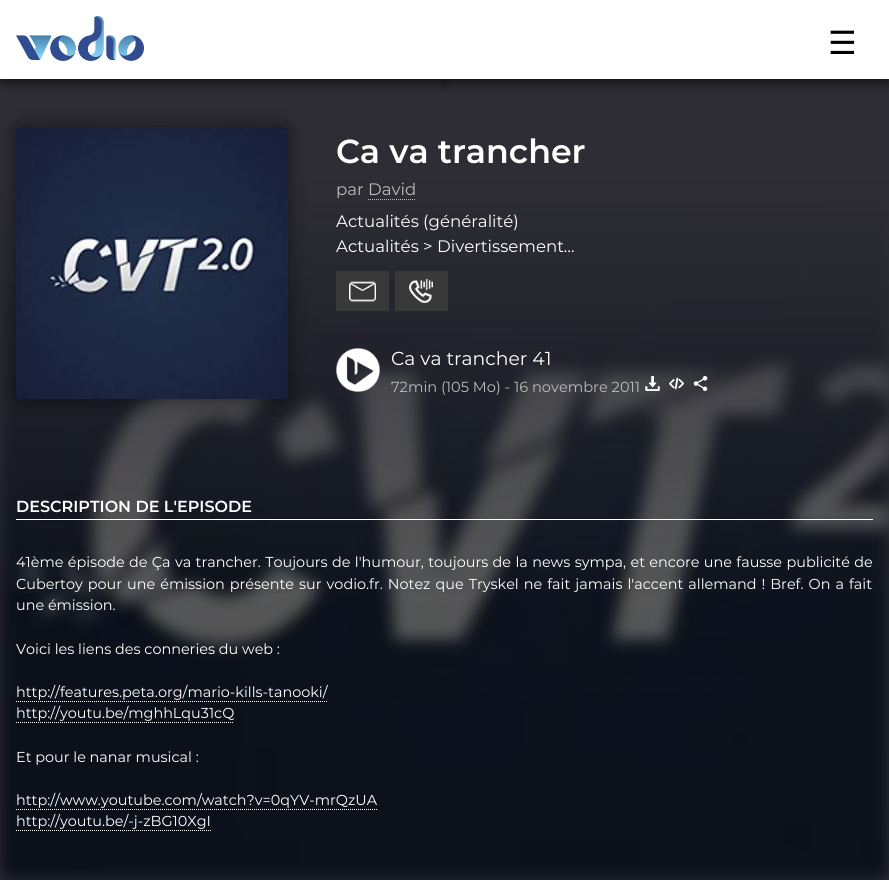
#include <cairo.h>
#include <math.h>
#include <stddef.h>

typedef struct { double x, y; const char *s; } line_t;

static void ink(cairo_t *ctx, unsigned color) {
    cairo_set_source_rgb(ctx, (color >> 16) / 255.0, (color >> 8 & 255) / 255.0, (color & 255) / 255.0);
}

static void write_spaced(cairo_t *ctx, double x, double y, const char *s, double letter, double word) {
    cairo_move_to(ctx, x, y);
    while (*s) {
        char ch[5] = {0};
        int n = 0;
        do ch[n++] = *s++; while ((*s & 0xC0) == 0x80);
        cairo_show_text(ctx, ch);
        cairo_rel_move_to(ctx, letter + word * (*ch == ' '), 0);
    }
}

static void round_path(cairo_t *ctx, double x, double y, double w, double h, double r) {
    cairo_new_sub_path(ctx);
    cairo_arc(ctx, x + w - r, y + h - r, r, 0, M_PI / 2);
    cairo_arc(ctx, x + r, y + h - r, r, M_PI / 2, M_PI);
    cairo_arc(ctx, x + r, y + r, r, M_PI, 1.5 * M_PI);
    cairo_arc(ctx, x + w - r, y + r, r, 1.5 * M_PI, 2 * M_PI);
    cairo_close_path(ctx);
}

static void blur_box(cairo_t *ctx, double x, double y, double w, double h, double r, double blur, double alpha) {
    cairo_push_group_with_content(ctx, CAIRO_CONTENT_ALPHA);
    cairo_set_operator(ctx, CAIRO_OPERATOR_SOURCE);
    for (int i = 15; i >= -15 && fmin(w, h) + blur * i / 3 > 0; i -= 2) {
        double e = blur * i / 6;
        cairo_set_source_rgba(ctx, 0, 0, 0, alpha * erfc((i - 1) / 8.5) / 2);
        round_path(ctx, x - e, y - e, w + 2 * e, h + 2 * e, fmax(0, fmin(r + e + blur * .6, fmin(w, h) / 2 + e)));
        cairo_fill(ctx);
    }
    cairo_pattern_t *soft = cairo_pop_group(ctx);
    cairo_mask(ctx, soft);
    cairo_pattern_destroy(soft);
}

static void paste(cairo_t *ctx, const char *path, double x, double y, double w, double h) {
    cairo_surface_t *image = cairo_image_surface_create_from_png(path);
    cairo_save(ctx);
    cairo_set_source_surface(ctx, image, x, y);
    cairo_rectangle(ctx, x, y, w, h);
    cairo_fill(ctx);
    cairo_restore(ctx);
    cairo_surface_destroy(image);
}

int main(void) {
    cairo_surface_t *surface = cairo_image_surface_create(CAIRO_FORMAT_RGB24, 889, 880);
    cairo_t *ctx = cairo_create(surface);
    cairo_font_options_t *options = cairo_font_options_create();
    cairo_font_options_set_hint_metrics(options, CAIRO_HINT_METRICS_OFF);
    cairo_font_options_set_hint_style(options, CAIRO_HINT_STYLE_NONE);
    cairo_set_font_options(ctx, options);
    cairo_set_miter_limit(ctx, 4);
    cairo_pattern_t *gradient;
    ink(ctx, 0x2E2D35);
    cairo_paint(ctx);
    ink(ctx, 0x000000);
    blur_box(ctx, 0, 64, 445, 20, 0, 5, 0.5);
    blur_box(ctx, 445, 64, 444, 20, 0, 5, 0.5);
    ink(ctx, 0xFFFFFF);
    cairo_rectangle(ctx, 0, 0, 889, 79);
    cairo_fill(ctx);
    paste(ctx, "media/1.png", 16, 16, 128, 45);
    cairo_select_font_face(ctx, "DejaVu Sans", CAIRO_FONT_SLANT_NORMAL, CAIRO_FONT_WEIGHT_NORMAL);
    cairo_set_font_size(ctx, 32);
    ink(ctx, 0x000000);
    cairo_move_to(ctx, 828, 54);
    cairo_show_text(ctx, "☰");
    paste(ctx, "media/9.png", 0, 178, 889, 702);
    gradient = cairo_pattern_create_linear(444, 0, 445, 880);
    cairo_pattern_add_color_stop_rgba(gradient, 0.2, 0.18, 0.176, 0.208, 1);
    cairo_pattern_add_color_stop_rgba(gradient, 0.3, 0.18, 0.176, 0.208, 0.82);
    cairo_pattern_add_color_stop_rgba(gradient, 0.7, 0.18, 0.176, 0.208, 0);
    cairo_set_source(ctx, gradient);
    cairo_pattern_destroy(gradient);
    cairo_rectangle(ctx, 0, 178, 889, 415);
    cairo_fill(ctx);
    ink(ctx, 0x000000);
    blur_box(ctx, 16, 127, 272, 272, 4, 10, 0.5);
    paste(ctx, "media/2.png", 16, 127, 272, 272);
    cairo_select_font_face(ctx, "Montserrat SemiBold", CAIRO_FONT_SLANT_NORMAL, CAIRO_FONT_WEIGHT_NORMAL);
    cairo_set_font_size(ctx, 33.25);
    ink(ctx, 0xFFFFFF);
    cairo_move_to(ctx, 336, 163);
    cairo_show_text(ctx, "Ca va trancher");
    cairo_select_font_face(ctx, "Montserrat", CAIRO_FONT_SLANT_NORMAL, CAIRO_FONT_WEIGHT_NORMAL);
    cairo_set_font_size(ctx, 16.6);
    ink(ctx, 0xBBBBBB);
    cairo_move_to(ctx, 336, 195);
    cairo_show_text(ctx, "par David");
    cairo_new_path(ctx);
    cairo_move_to(ctx, 368, 199.5);
    cairo_line_to(ctx, 416, 199.5);
    cairo_set_line_width(ctx, 1);
    cairo_set_dash(ctx, (double[]){1, 1}, 2, 0);
    cairo_stroke(ctx);
    ink(ctx, 0xFFFFFF);
    cairo_move_to(ctx, 336, 227);
    cairo_show_text(ctx, "Actualités (généralité)");
    cairo_move_to(ctx, 336, 252);
    cairo_show_text(ctx, "Actualités > Divertissement…");
    ink(ctx, 0x393939);
    cairo_rectangle(ctx, 336, 271, 53, 40);
    cairo_fill(ctx);
    paste(ctx, "media/3.png", 349, 281, 27, 21);
    cairo_rectangle(ctx, 395, 271, 53, 40);
    cairo_fill(ctx);
    paste(ctx, "media/4.png", 409, 279, 24, 24);
    paste(ctx, "media/5.png", 336, 348, 44, 44);
    cairo_set_font_size(ctx, 18.75);
    ink(ctx, 0xFFFFFF);
    cairo_move_to(ctx, 391, 365);
    cairo_show_text(ctx, "Ca va trancher 41");
    cairo_set_font_size(ctx, 14.6);
    ink(ctx, 0xBBBBBB);
    cairo_move_to(ctx, 391, 392);
    cairo_show_text(ctx, "72min (105 Mo) - 16 novembre 2011");
    paste(ctx, "media/6.png", 645, 376, 15, 15);
    paste(ctx, "media/7.png", 669, 377, 15, 13);
    paste(ctx, "media/8.png", 693, 376, 15, 15);
    ink(ctx, 0xFFFFFF);
    cairo_rectangle(ctx, 16, 519, 857, 1);
    cairo_fill(ctx);
    cairo_select_font_face(ctx, "Montserrat SemiBold", CAIRO_FONT_SLANT_NORMAL, CAIRO_FONT_WEIGHT_NORMAL);
    cairo_set_font_size(ctx, 16);
    cairo_move_to(ctx, 16, 512);
    cairo_show_text(ctx, "DESCRIPTION DE L'EPISODE");
    cairo_select_font_face(ctx, "Montserrat", CAIRO_FONT_SLANT_NORMAL, CAIRO_FONT_WEIGHT_NORMAL);
    cairo_set_font_size(ctx, 14.4);
    write_spaced(ctx, 16, 567, "41ème épisode de Ça va trancher. Toujours de l'humour, toujours de la news sympa, et encore une fausse publicité de", 0, 0.6);
    write_spaced(ctx, 16, 589, "Cubertoy pour une émission présente sur vodio.fr. Notez que Tryskel ne fait jamais l'accent allemand ! Bref. On a fait", 0, 1.25);
    {
        static const line_t items[] = {
            {16, 610, "une émission."},
            {16, 654, "Voici les liens des conneries du web :"},
            {16, 697, "http://features.peta.org/mario-kills-tanooki/"},
        };
        for (size_t i = 0; i < sizeof items / sizeof *items; i++) {
            cairo_move_to(ctx, items[i].x, items[i].y);
            cairo_show_text(ctx, items[i].s);
        }
    }
    cairo_new_path(ctx);
    cairo_move_to(ctx, 16, 701.5);
    cairo_line_to(ctx, 327, 701.5);
    cairo_stroke(ctx);
    cairo_move_to(ctx, 16, 718);
    cairo_show_text(ctx, "http://youtu.be/mghhLqu31cQ");
    cairo_new_path(ctx);
    cairo_move_to(ctx, 16, 722.5);
    cairo_line_to(ctx, 234, 722.5);
    cairo_stroke(ctx);
    cairo_move_to(ctx, 16, 762);
    cairo_show_text(ctx, "Et pour le nanar musical :");
    cairo_move_to(ctx, 16, 805);
    cairo_show_text(ctx, "http://www.youtube.com/watch?v=0qYV-mrQzUA");
    cairo_new_path(ctx);
    cairo_move_to(ctx, 16, 809.5);
    cairo_line_to(ctx, 377, 809.5);
    cairo_stroke(ctx);
    cairo_move_to(ctx, 16, 826);
    cairo_show_text(ctx, "http://youtu.be/-j-zBG10XgI");
    cairo_new_path(ctx);
    cairo_move_to(ctx, 16, 830.5);
    cairo_line_to(ctx, 211, 830.5);
    cairo_stroke(ctx);
    cairo_surface_write_to_png(surface, "image.png");
    cairo_font_options_destroy(options);
    cairo_destroy(ctx);
    cairo_surface_destroy(surface);
    return 0;
}
